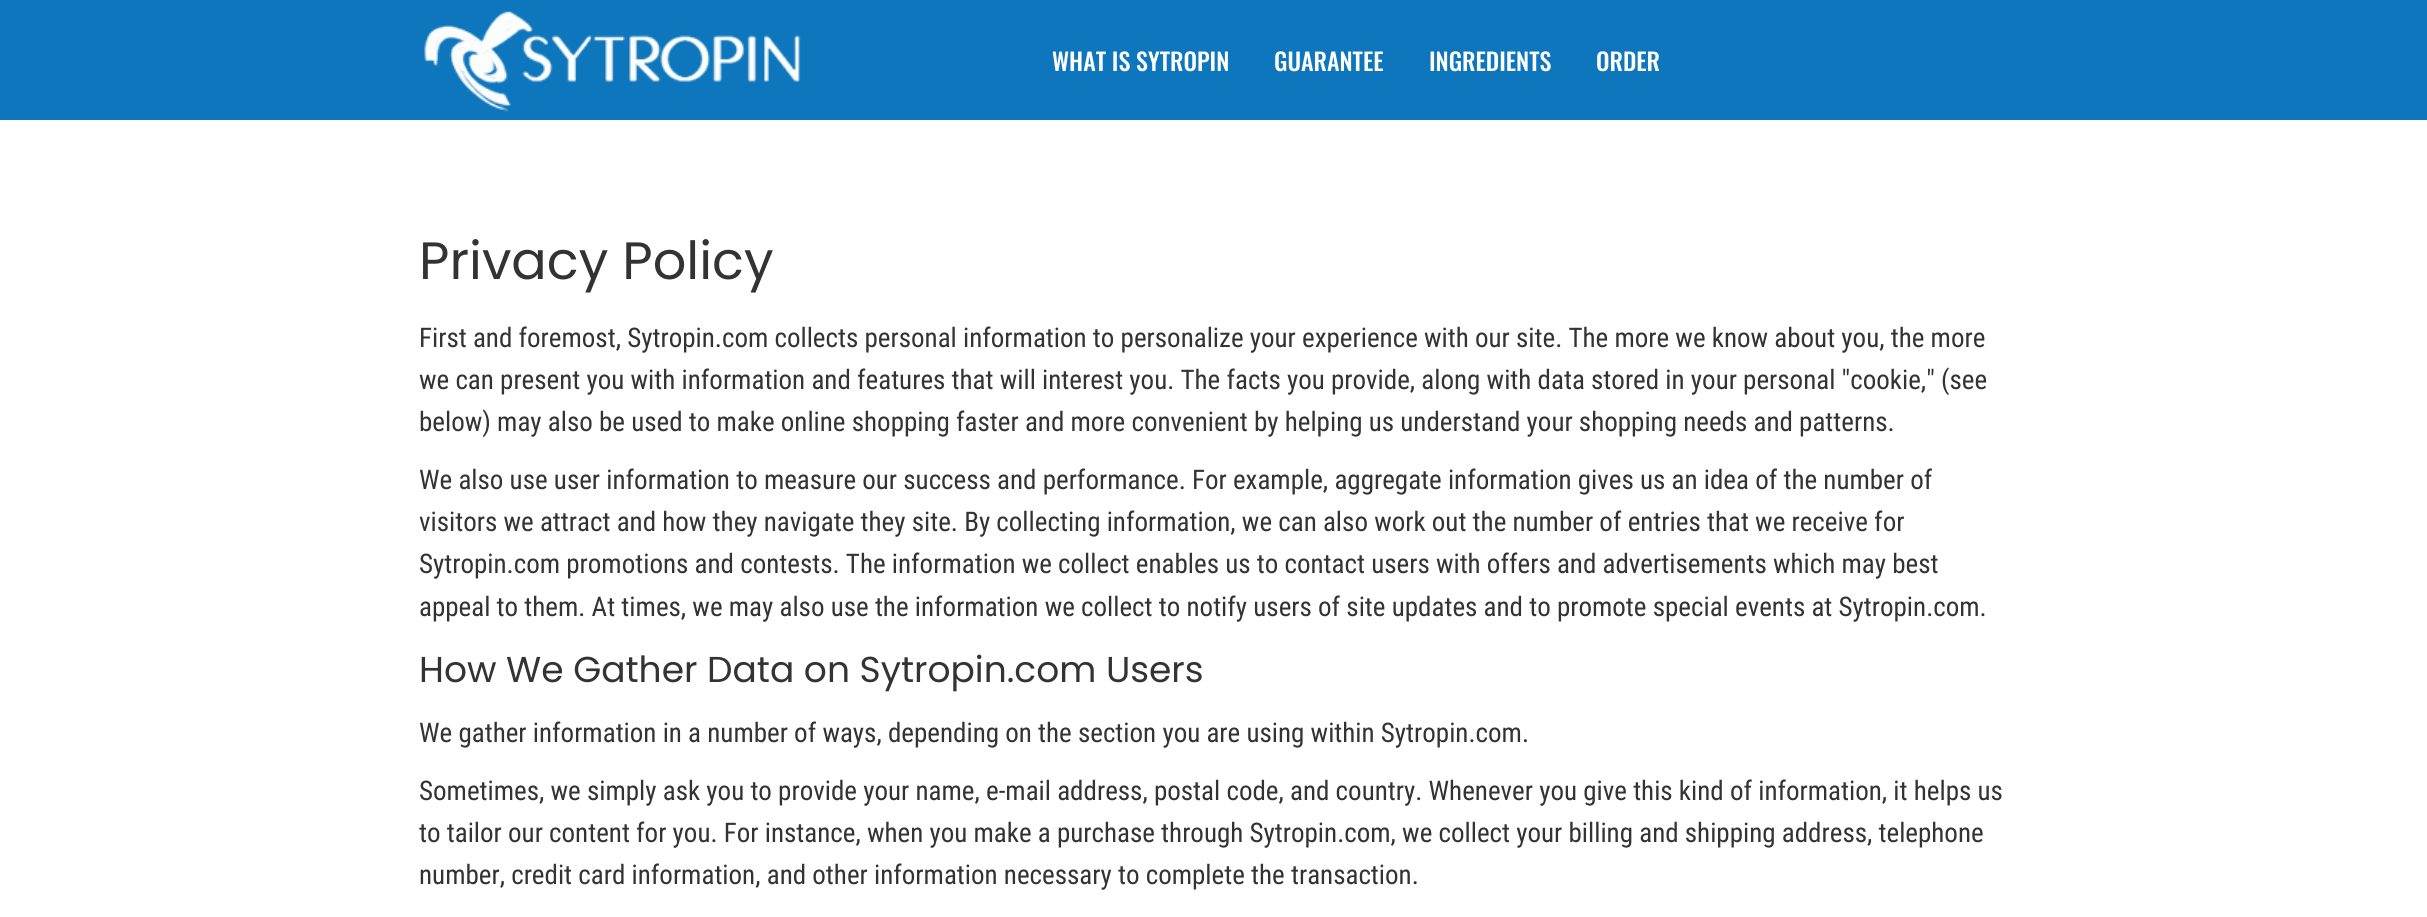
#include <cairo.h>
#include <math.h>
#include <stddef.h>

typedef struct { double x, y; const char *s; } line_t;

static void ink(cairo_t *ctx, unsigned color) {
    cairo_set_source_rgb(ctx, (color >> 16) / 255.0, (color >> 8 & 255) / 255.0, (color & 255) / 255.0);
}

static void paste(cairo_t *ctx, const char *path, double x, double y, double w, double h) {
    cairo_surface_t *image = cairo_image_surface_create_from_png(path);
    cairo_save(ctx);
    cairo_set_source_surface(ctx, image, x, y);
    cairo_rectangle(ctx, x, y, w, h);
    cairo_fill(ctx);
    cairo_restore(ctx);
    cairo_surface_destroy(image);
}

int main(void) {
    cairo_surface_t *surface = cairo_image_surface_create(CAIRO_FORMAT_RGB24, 2427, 917);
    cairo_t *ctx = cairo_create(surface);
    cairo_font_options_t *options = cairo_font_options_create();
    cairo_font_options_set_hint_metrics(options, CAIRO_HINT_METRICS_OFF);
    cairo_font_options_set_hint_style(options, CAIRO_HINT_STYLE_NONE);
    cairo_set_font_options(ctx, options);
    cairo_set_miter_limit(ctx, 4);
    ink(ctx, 0xFFFFFF);
    cairo_paint(ctx);
    ink(ctx, 0x0E76BC);
    cairo_rectangle(ctx, 0, 0, 2427, 120);
    cairo_fill(ctx);
    paste(ctx, "media/1.png", 424, 11, 377, 101);
    cairo_select_font_face(ctx, "Oswald Medium", CAIRO_FONT_SLANT_NORMAL, CAIRO_FONT_WEIGHT_NORMAL);
    cairo_set_font_size(ctx, 24);
    ink(ctx, 0xFFFFFF);
    {
        static const line_t items[] = {
            {1052, 71, "WHAT IS SYTROPIN"},
            {1274, 71, "GUARANTEE"},
            {1429, 71, "INGREDIENTS"},
            {1596, 71, "ORDER"},
        };
        for (size_t i = 0; i < sizeof items / sizeof *items; i++) {
            cairo_move_to(ctx, items[i].x, items[i].y);
            cairo_show_text(ctx, items[i].s);
        }
    }
    cairo_select_font_face(ctx, "Poppins", CAIRO_FONT_SLANT_NORMAL, CAIRO_FONT_WEIGHT_NORMAL);
    cairo_set_font_size(ctx, 52.5);
    ink(ctx, 0x333333);
    cairo_move_to(ctx, 419, 279);
    cairo_show_text(ctx, "Privacy Policy");
    cairo_select_font_face(ctx, "Roboto Condensed", CAIRO_FONT_SLANT_NORMAL, CAIRO_FONT_WEIGHT_NORMAL);
    cairo_set_font_size(ctx, 27);
    {
        static const line_t items[] = {
            {419, 347, "First and foremost, Sytropin.com collects personal information to personalize your experience with our site. The more we know about you, the more"},
            {419, 389, "we can present you with information and features that will interest you. The facts you provide, along with data stored in your personal \"cookie,\" (see"},
            {419, 431, "below) may also be used to make online shopping faster and more convenient by helping us understand your shopping needs and patterns."},
            {419, 489, "We also use user information to measure our success and performance. For example, aggregate information gives us an idea of the number of"},
            {419, 531, "visitors we attract and how they navigate they site. By collecting information, we can also work out the number of entries that we receive for"},
            {419, 573, "Sytropin.com promotions and contests. The information we collect enables us to contact users with offers and advertisements which may best"},
            {419, 616, "appeal to them. At times, we may also use the information we collect to notify users of site updates and to promote special events at Sytropin.com."},
        };
        for (size_t i = 0; i < sizeof items / sizeof *items; i++) {
            cairo_move_to(ctx, items[i].x, items[i].y);
            cairo_show_text(ctx, items[i].s);
        }
    }
    cairo_select_font_face(ctx, "Poppins", CAIRO_FONT_SLANT_NORMAL, CAIRO_FONT_WEIGHT_NORMAL);
    cairo_set_font_size(ctx, 36);
    cairo_move_to(ctx, 419, 682);
    cairo_show_text(ctx, "How We Gather Data on Sytropin.com Users");
    cairo_select_font_face(ctx, "Roboto Condensed", CAIRO_FONT_SLANT_NORMAL, CAIRO_FONT_WEIGHT_NORMAL);
    cairo_set_font_size(ctx, 27);
    {
        static const line_t items[] = {
            {419, 742, "We gather information in a number of ways, depending on the section you are using within Sytropin.com."},
            {419, 800, "Sometimes, we simply ask you to provide your name, e-mail address, postal code, and country. Whenever you give this kind of information, it helps us"},
            {419, 842, "to tailor our content for you. For instance, when you make a purchase through Sytropin.com, we collect your billing and shipping address, telephone"},
            {419, 884, "number, credit card information, and other information necessary to complete the transaction."},
        };
        for (size_t i = 0; i < sizeof items / sizeof *items; i++) {
            cairo_move_to(ctx, items[i].x, items[i].y);
            cairo_show_text(ctx, items[i].s);
        }
    }
    cairo_surface_write_to_png(surface, "image.png");
    cairo_font_options_destroy(options);
    cairo_destroy(ctx);
    cairo_surface_destroy(surface);
    return 0;
}
